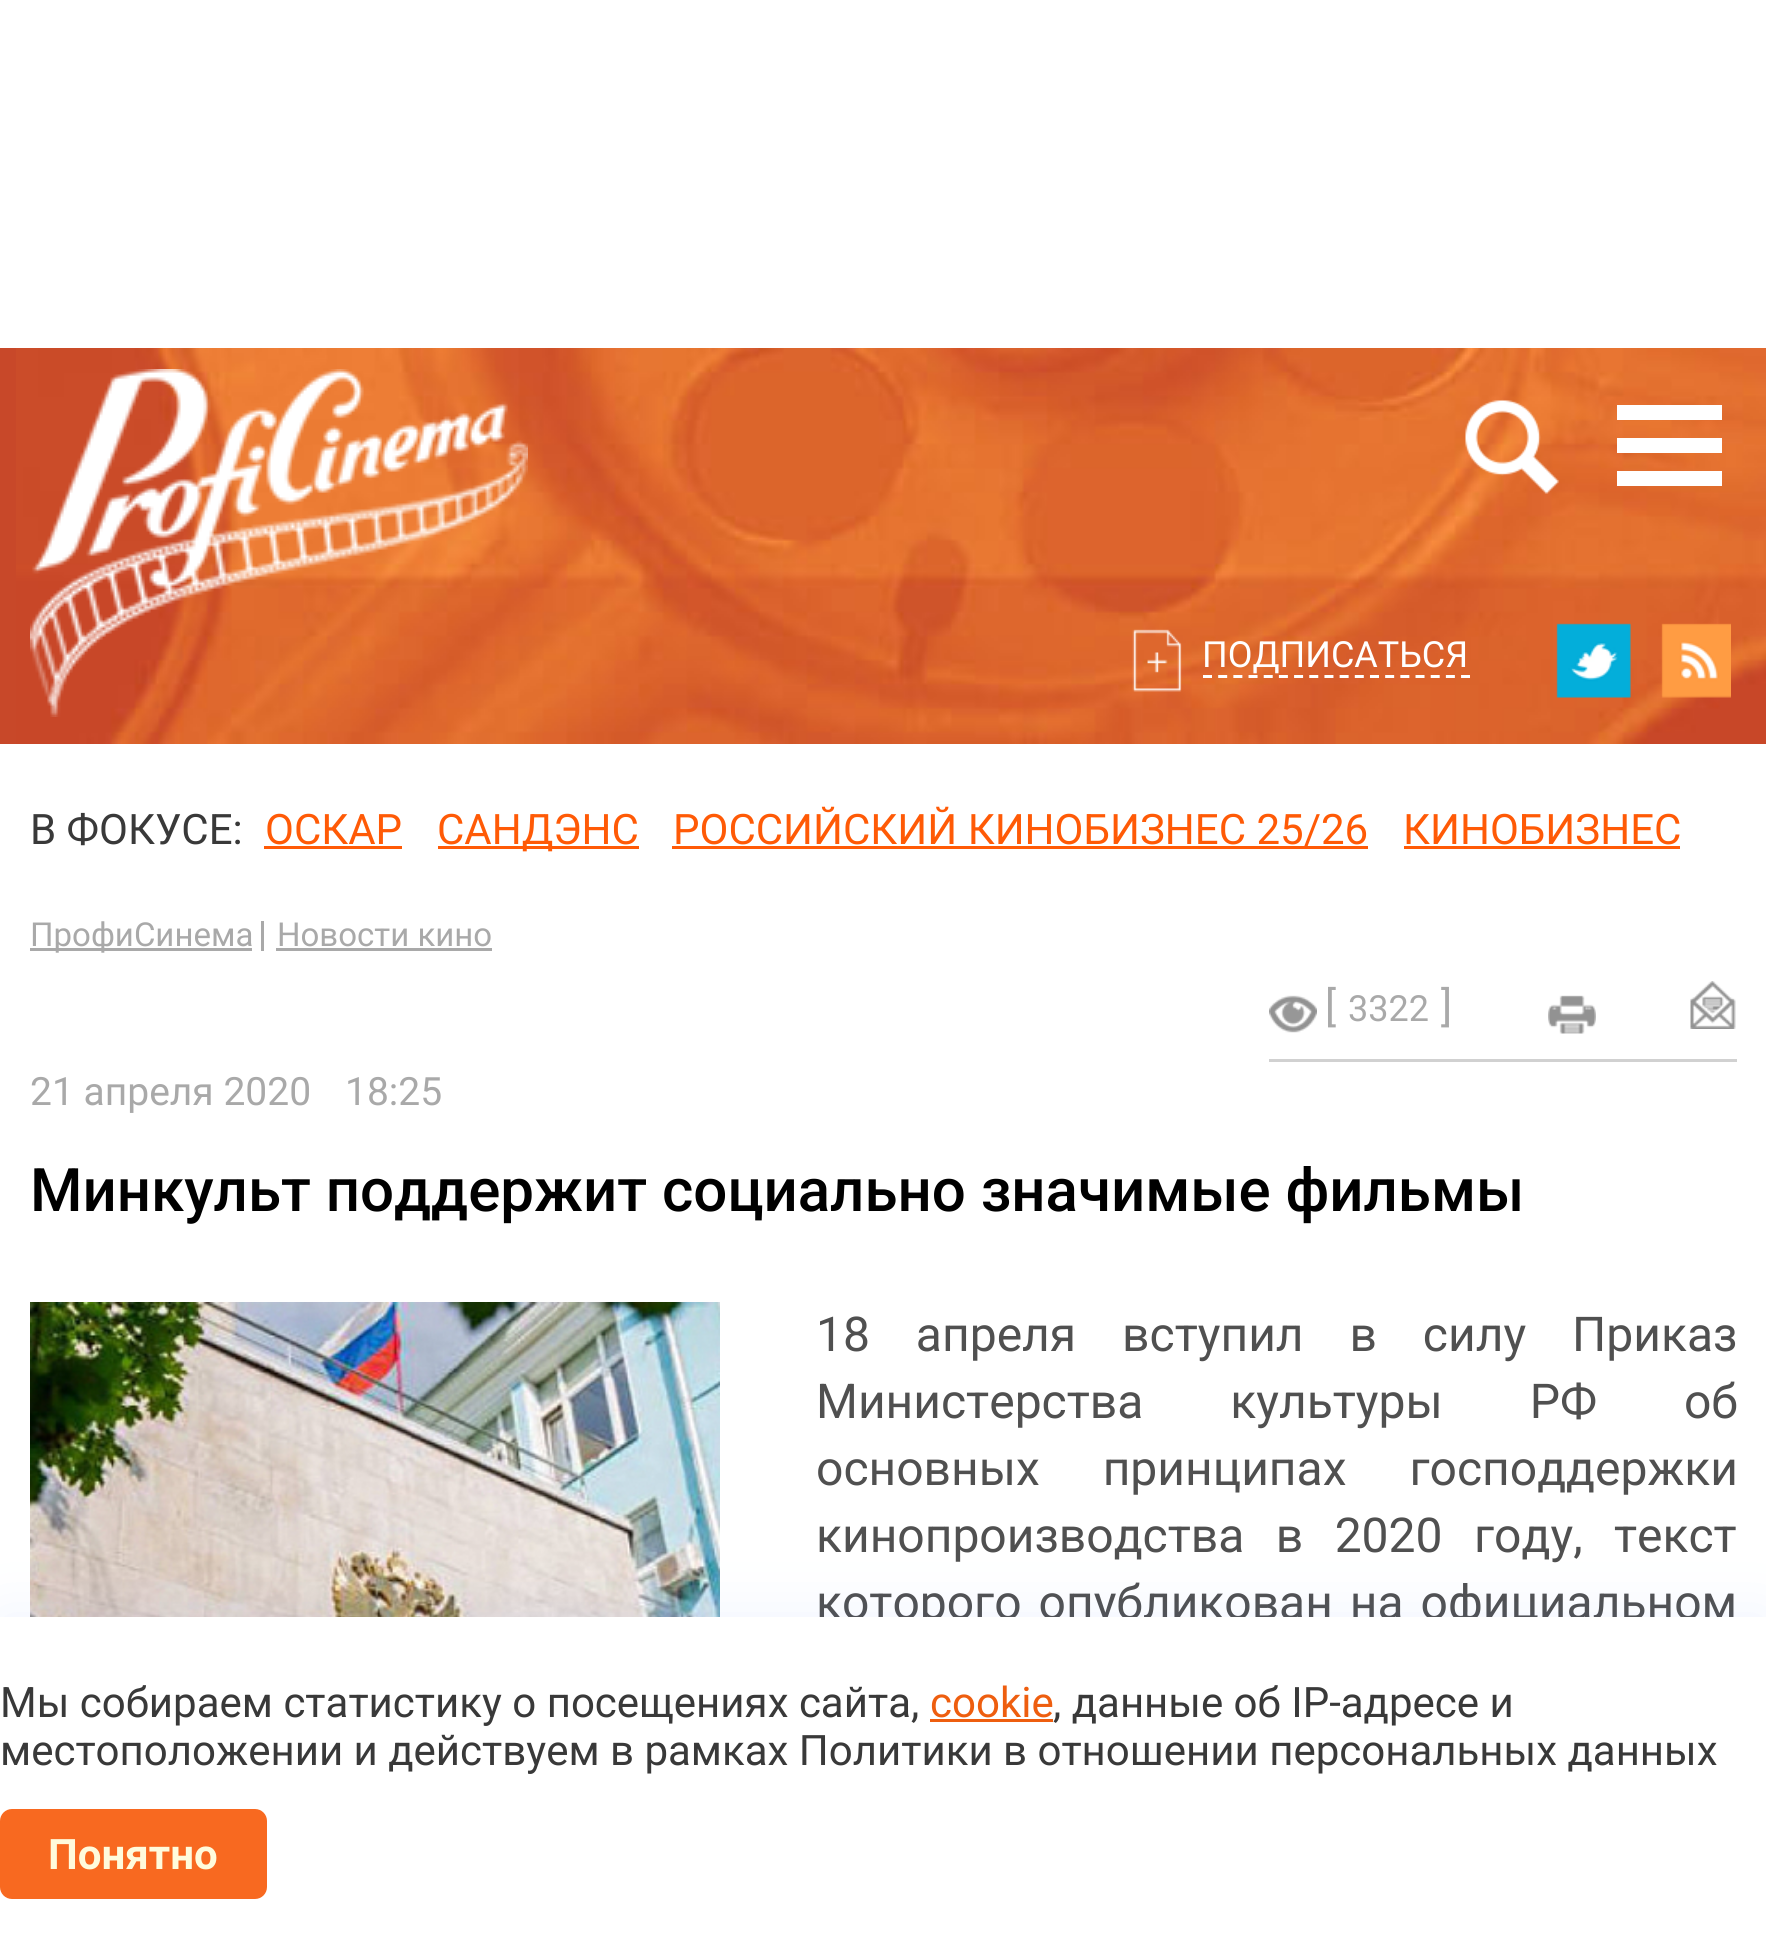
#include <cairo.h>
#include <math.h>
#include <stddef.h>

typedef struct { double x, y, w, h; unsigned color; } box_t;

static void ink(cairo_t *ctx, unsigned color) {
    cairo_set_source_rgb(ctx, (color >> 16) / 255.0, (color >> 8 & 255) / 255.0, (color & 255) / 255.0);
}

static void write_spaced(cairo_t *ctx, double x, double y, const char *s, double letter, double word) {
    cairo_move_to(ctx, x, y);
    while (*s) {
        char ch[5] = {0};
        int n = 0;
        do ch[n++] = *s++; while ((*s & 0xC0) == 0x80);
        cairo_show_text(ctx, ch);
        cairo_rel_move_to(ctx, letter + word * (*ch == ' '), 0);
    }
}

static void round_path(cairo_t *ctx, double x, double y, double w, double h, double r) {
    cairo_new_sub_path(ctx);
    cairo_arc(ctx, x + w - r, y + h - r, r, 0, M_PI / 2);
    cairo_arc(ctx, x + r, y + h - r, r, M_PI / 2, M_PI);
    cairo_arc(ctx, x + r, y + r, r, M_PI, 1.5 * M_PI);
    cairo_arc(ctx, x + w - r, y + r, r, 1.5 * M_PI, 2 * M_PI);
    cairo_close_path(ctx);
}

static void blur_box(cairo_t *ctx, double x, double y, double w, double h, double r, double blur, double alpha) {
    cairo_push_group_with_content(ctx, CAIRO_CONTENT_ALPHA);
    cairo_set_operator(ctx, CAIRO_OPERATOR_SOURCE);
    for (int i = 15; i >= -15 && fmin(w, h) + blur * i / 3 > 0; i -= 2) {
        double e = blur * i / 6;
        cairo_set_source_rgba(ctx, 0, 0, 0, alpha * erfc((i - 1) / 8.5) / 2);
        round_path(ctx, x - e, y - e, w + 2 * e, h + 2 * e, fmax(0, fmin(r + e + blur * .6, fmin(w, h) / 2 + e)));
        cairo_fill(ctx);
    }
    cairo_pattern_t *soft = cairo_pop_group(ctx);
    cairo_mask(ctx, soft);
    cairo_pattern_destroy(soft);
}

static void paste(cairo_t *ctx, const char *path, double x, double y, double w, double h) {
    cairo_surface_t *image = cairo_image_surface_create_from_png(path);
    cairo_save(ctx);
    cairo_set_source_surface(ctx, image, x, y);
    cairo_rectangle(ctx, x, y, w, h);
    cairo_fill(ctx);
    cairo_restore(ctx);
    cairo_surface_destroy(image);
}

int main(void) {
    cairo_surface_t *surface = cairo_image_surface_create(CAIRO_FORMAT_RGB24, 1766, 1958);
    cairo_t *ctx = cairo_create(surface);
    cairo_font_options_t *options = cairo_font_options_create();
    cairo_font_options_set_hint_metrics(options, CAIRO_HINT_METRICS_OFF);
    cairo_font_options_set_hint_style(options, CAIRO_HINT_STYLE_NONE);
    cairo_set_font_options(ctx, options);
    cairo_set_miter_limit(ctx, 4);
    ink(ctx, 0xFFFFFF);
    cairo_paint(ctx);
    ink(ctx, 0xC84829);
    cairo_rectangle(ctx, 0, 348, 16, 396);
    cairo_fill(ctx);
    paste(ctx, "media/1.png", 16, 348, 1750, 396);
    {
        static const box_t items[] = {
            {1617, 405, 105, 15, 0xFFFFFF},
            {1617, 438, 105, 15, 0xFFFFFF},
            {1617, 471, 105, 15, 0xFFFFFF},
        };
        for (size_t i = 0; i < sizeof items / sizeof *items; i++) {
            ink(ctx, items[i].color);
            cairo_rectangle(ctx, items[i].x, items[i].y, items[i].w, items[i].h);
            cairo_fill(ctx);
        }
    }
    paste(ctx, "media/2.png", 30, 369, 498, 348);
    paste(ctx, "media/3.png", 1465, 399, 94, 95);
    cairo_new_path(ctx);
    cairo_move_to(ctx, 1203, 676.5);
    cairo_line_to(ctx, 1470, 676.5);
    cairo_set_line_width(ctx, 3);
    cairo_set_dash(ctx, (double[]){9, 6.18}, 2, 0);
    cairo_stroke(ctx);
    paste(ctx, "media/4.png", 1132, 629, 50, 63);
    cairo_select_font_face(ctx, "Roboto", CAIRO_FONT_SLANT_NORMAL, CAIRO_FONT_WEIGHT_NORMAL);
    cairo_set_font_size(ctx, 36);
    cairo_move_to(ctx, 1202, 667);
    cairo_show_text(ctx, "ПОДПИСАТЬСЯ");
    paste(ctx, "media/5.png", 1556, 623, 75, 75);
    paste(ctx, "media/6.png", 1661, 623, 70, 75);
    cairo_set_font_size(ctx, 42);
    ink(ctx, 0x393939);
    cairo_move_to(ctx, 30, 844);
    cairo_show_text(ctx, "В ФОКУСЕ:");
    ink(ctx, 0xFF5A06);
    cairo_move_to(ctx, 265, 844);
    cairo_show_text(ctx, "ОСКАР");
    cairo_rectangle(ctx, 264, 846, 138, 3);
    cairo_fill(ctx);
    cairo_rectangle(ctx, 438, 846, 201, 3);
    cairo_fill(ctx);
    cairo_move_to(ctx, 437, 844);
    cairo_show_text(ctx, "САНДЭНС");
    cairo_rectangle(ctx, 672, 846, 696, 3);
    cairo_fill(ctx);
    cairo_move_to(ctx, 673, 844);
    cairo_show_text(ctx, "РОССИЙСКИЙ КИНОБИЗНЕС 25/26");
    cairo_move_to(ctx, 1403, 844);
    cairo_show_text(ctx, "КИНОБИЗНЕС");
    cairo_rectangle(ctx, 1404, 846, 276, 3);
    cairo_fill(ctx);
    ink(ctx, 0xA9A9A9);
    cairo_rectangle(ctx, 30, 948, 222, 3);
    cairo_fill(ctx);
    cairo_set_font_size(ctx, 33);
    cairo_move_to(ctx, 30, 946);
    cairo_show_text(ctx, "ПрофиСинема");
    cairo_rectangle(ctx, 261, 921, 3, 30);
    cairo_fill(ctx);
    cairo_move_to(ctx, 277, 946);
    cairo_show_text(ctx, "Новости кино");
    cairo_rectangle(ctx, 276, 948, 216, 3);
    cairo_fill(ctx);
    ink(ctx, 0xD1D1D1);
    cairo_rectangle(ctx, 1269, 1059, 468, 3);
    cairo_fill(ctx);
    paste(ctx, "media/7.png", 1269, 995, 48, 38);
    cairo_set_font_size(ctx, 42);
    ink(ctx, 0xA9A9A9);
    cairo_move_to(ctx, 1325, 1021);
    cairo_show_text(ctx, "[");
    cairo_set_font_size(ctx, 36);
    cairo_move_to(ctx, 1348, 1021);
    cairo_show_text(ctx, "3322");
    cairo_set_font_size(ctx, 42);
    cairo_move_to(ctx, 1441, 1021);
    cairo_show_text(ctx, "]");
    paste(ctx, "media/8.png", 1548, 995, 48, 39);
    paste(ctx, "media/9.png", 1690, 981, 46, 48);
    cairo_set_font_size(ctx, 39);
    cairo_move_to(ctx, 30, 1105);
    cairo_show_text(ctx, "21 апреля 2020");
    cairo_move_to(ctx, 345, 1105);
    cairo_show_text(ctx, "18:25");
    cairo_select_font_face(ctx, "Roboto Medium", CAIRO_FONT_SLANT_NORMAL, CAIRO_FONT_WEIGHT_NORMAL);
    cairo_set_font_size(ctx, 60);
    ink(ctx, 0x000000);
    cairo_move_to(ctx, 30, 1211);
    cairo_show_text(ctx, "Минкульт поддержит социально значимые фильмы");
    paste(ctx, "media/10.png", 30, 1302, 690, 315);
    cairo_select_font_face(ctx, "Roboto", CAIRO_FONT_SLANT_NORMAL, CAIRO_FONT_WEIGHT_NORMAL);
    cairo_set_font_size(ctx, 48);
    ink(ctx, 0x505050);
    write_spaced(ctx, 816, 1351, "18 апреля вступил в силу Приказ", 0, 34);
    write_spaced(ctx, 816, 1418, "Министерства культуры РФ об", 0, 75);
    write_spaced(ctx, 816, 1485, "основных принципах господдержки", 0, 51);
    write_spaced(ctx, 816, 1552, "кинопроизводства в 2020 году, текст", 0, 19.5);
    write_spaced(ctx, 816, 1619, "которого опубликован на официальном", 0, 5);
    ink(ctx, 0x5280F6);
    blur_box(ctx, 0, 1617, 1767, 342, 0, 30, 0.1);
    ink(ctx, 0xFFFFFF);
    cairo_rectangle(ctx, 0, 1617, 1766, 341);
    cairo_fill(ctx);
    cairo_set_font_size(ctx, 42);
    ink(ctx, 0x393939);
    cairo_move_to(ctx, 0, 1717);
    cairo_show_text(ctx, "Мы собираем статистику о посещениях сайта,");
    ink(ctx, 0xEE5E0F);
    cairo_move_to(ctx, 930, 1717);
    cairo_show_text(ctx, "cookie");
    cairo_rectangle(ctx, 930, 1719, 123, 3);
    cairo_fill(ctx);
    ink(ctx, 0x393939);
    cairo_move_to(ctx, 1053, 1717);
    cairo_show_text(ctx, ", данные об IP-адресе и");
    cairo_move_to(ctx, 0, 1765);
    cairo_show_text(ctx, "местоположении и действуем в рамках Политики в отношении персональных данных");
    ink(ctx, 0xF86920);
    round_path(ctx, 0, 1809, 267, 90, 12);
    cairo_fill(ctx);
    cairo_select_font_face(ctx, "Roboto", CAIRO_FONT_SLANT_NORMAL, CAIRO_FONT_WEIGHT_BOLD);
    ink(ctx, 0xFFFBDC);
    cairo_move_to(ctx, 48, 1869);
    cairo_show_text(ctx, "Понятно");
    cairo_surface_write_to_png(surface, "image.png");
    cairo_font_options_destroy(options);
    cairo_destroy(ctx);
    cairo_surface_destroy(surface);
    return 0;
}
